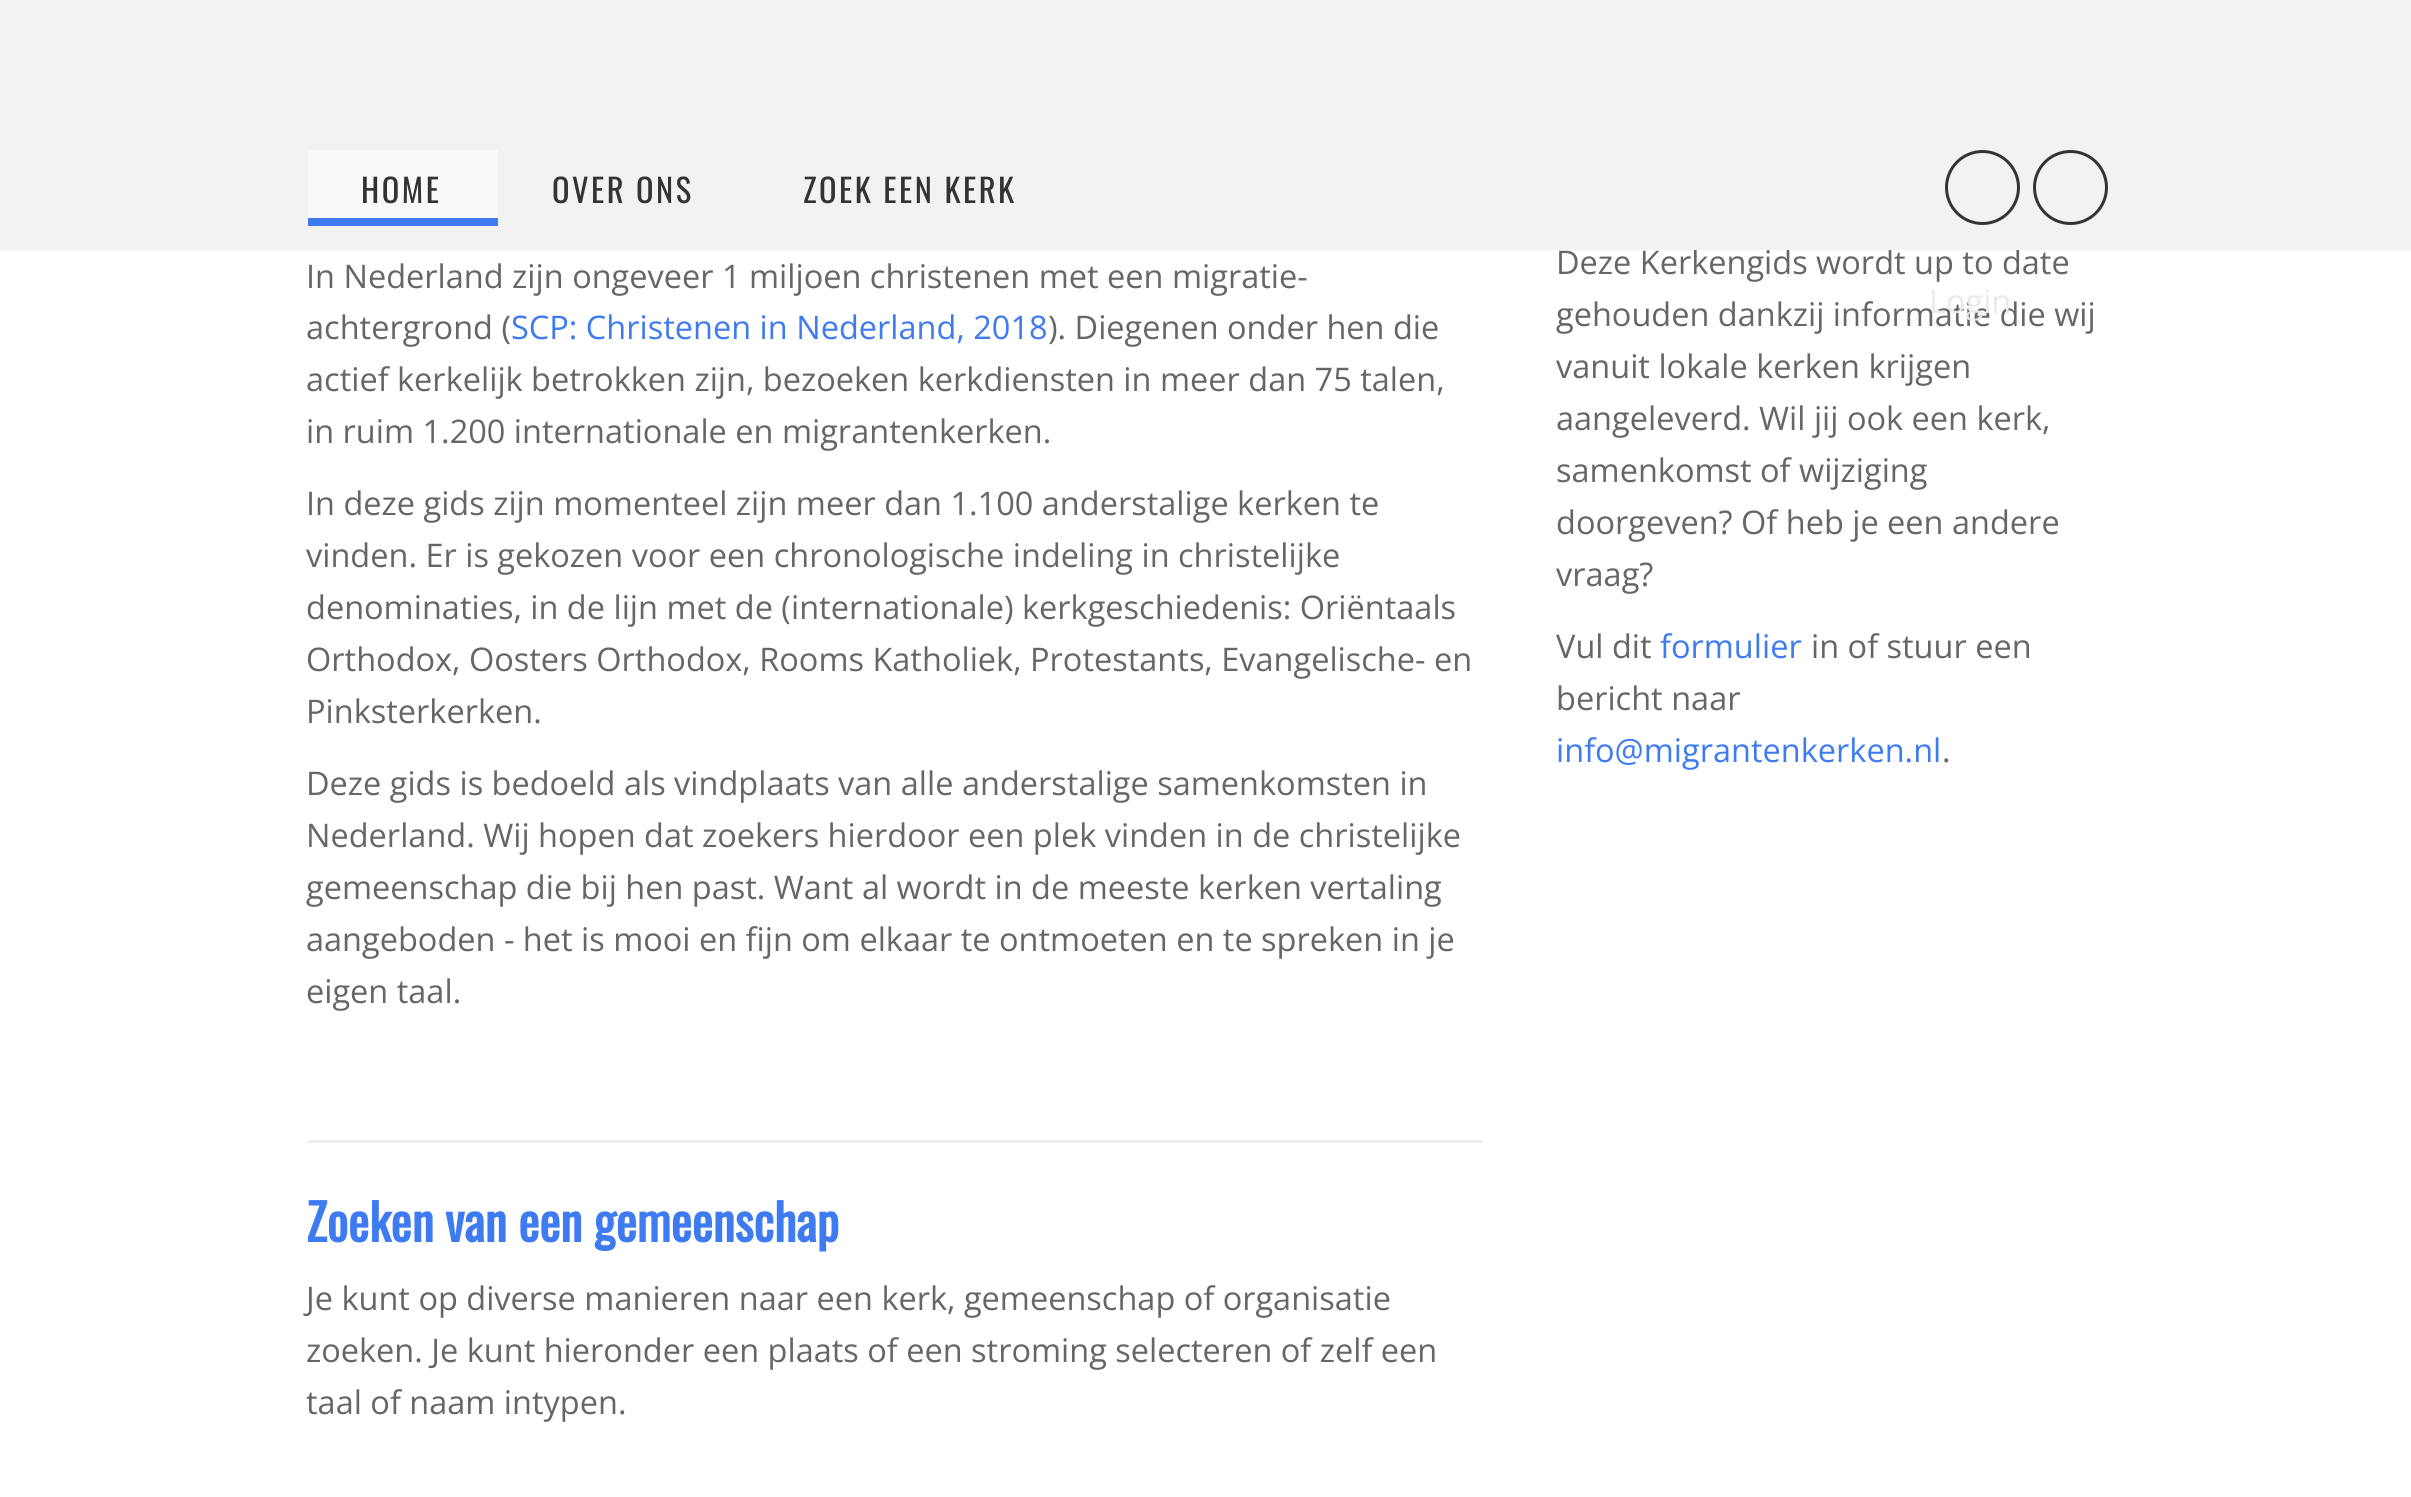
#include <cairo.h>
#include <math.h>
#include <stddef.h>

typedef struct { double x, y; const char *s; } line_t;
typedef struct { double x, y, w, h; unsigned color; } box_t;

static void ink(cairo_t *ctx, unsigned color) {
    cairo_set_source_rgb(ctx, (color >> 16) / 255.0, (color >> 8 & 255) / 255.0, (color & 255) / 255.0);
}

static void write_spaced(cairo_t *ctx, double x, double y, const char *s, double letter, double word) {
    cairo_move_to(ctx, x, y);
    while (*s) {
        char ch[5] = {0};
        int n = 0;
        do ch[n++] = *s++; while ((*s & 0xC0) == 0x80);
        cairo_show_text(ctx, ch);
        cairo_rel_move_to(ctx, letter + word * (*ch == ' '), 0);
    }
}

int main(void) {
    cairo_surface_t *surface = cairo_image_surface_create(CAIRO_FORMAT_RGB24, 2411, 1497);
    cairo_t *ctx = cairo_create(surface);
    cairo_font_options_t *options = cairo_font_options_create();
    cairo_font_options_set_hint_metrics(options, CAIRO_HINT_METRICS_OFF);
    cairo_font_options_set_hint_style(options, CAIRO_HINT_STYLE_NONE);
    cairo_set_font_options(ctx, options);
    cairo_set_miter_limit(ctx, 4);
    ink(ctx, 0xFFFFFF);
    cairo_paint(ctx);
    cairo_select_font_face(ctx, "Open Sans", CAIRO_FONT_SLANT_NORMAL, CAIRO_FONT_WEIGHT_NORMAL);
    cairo_set_font_size(ctx, 32.5);
    ink(ctx, 0x666666);
    cairo_move_to(ctx, 1556, 274);
    cairo_show_text(ctx, "Deze Kerkengids wordt up to date");
    {
        static const box_t items[] = {
            {0, 0, 2411, 250, 0xF2F2F2},
            {308, 150, 190, 68, 0xF9F9F9},
            {308, 218, 190, 8, 0x3E7BF1},
        };
        for (size_t i = 0; i < sizeof items / sizeof *items; i++) {
            ink(ctx, items[i].color);
            cairo_rectangle(ctx, items[i].x, items[i].y, items[i].w, items[i].h);
            cairo_fill(ctx);
        }
    }
    cairo_select_font_face(ctx, "Oswald", CAIRO_FONT_SLANT_NORMAL, CAIRO_FONT_WEIGHT_NORMAL);
    ink(ctx, 0x333333);
    {
        static const line_t items[] = {
            {361, 203, "HOME"},
            {552, 203, "OVER ONS"},
            {803, 203, "ZOEK EEN KERK"},
        };
        for (size_t i = 0; i < sizeof items / sizeof *items; i++) {
            write_spaced(ctx, items[i].x, items[i].y, items[i].s, 2.5, 0);
        }
    }
    cairo_new_path(ctx);
    cairo_arc(ctx, 2070.5, 187.5, 36, 0, 2 * M_PI);
    cairo_set_line_width(ctx, 3);
    cairo_stroke(ctx);
    cairo_arc(ctx, 1982.5, 187.5, 36, 0, 2 * M_PI);
    cairo_stroke(ctx);
    cairo_select_font_face(ctx, "Open Sans", CAIRO_FONT_SLANT_NORMAL, CAIRO_FONT_WEIGHT_NORMAL);
    ink(ctx, 0x666666);
    cairo_move_to(ctx, 1556, 326);
    cairo_show_text(ctx, "gehouden dankzij informatie die wij");
    ink(ctx, 0xEAEAEA);
    cairo_move_to(ctx, 1929, 313);
    cairo_show_text(ctx, "Login");
    ink(ctx, 0x666666);
    cairo_move_to(ctx, 306, 288);
    cairo_show_text(ctx, "In Nederland zijn ongeveer 1 miljoen christenen met een migratie-");
    cairo_move_to(ctx, 306, 339);
    cairo_show_text(ctx, "achtergrond (");
    ink(ctx, 0x3E7BF1);
    cairo_move_to(ctx, 511, 339);
    cairo_show_text(ctx, "SCP: Christenen in Nederland, 2018");
    ink(ctx, 0x666666);
    {
        static const line_t items[] = {
            {1048, 339, "). Diegenen onder hen die"},
            {306, 391, "actief kerkelijk betrokken zijn, bezoeken kerkdiensten in meer dan 75 talen,"},
            {306, 443, "in ruim 1.200 internationale en migrantenkerken."},
            {306, 515, "In deze gids zijn momenteel zijn meer dan 1.100 anderstalige kerken te"},
            {306, 567, "vinden. Er is gekozen voor een chronologische indeling in christelijke"},
            {306, 619, "denominaties, in de lijn met de (internationale) kerkgeschiedenis: Oriëntaals"},
            {306, 671, "Orthodox, Oosters Orthodox, Rooms Katholiek, Protestants, Evangelische- en"},
            {306, 723, "Pinksterkerken."},
            {306, 795, "Deze gids is bedoeld als vindplaats van alle anderstalige samenkomsten in"},
            {306, 847, "Nederland. Wij hopen dat zoekers hierdoor een plek vinden in de christelijke"},
            {306, 899, "gemeenschap die bij hen past. Want al wordt in de meeste kerken vertaling"},
            {306, 951, "aangeboden - het is mooi en fijn om elkaar te ontmoeten en te spreken in je"},
            {306, 1003, "eigen taal."},
        };
        for (size_t i = 0; i < sizeof items / sizeof *items; i++) {
            cairo_move_to(ctx, items[i].x, items[i].y);
            cairo_show_text(ctx, items[i].s);
        }
    }
    ink(ctx, 0xEEEEEE);
    cairo_rectangle(ctx, 308, 1140, 1175, 3);
    cairo_fill(ctx);
    cairo_select_font_face(ctx, "Oswald", CAIRO_FONT_SLANT_NORMAL, CAIRO_FONT_WEIGHT_BOLD);
    cairo_set_font_size(ctx, 50);
    ink(ctx, 0x3E7BF1);
    cairo_move_to(ctx, 306, 1242);
    cairo_show_text(ctx, "Zoeken van een gemeenschap");
    cairo_select_font_face(ctx, "Open Sans", CAIRO_FONT_SLANT_NORMAL, CAIRO_FONT_WEIGHT_NORMAL);
    cairo_set_font_size(ctx, 32.5);
    ink(ctx, 0x666666);
    {
        static const line_t items[] = {
            {306, 1310, "Je kunt op diverse manieren naar een kerk, gemeenschap of organisatie"},
            {306, 1362, "zoeken. Je kunt hieronder een plaats of een stroming selecteren of zelf een"},
            {306, 1414, "taal of naam intypen."},
            {1556, 378, "vanuit lokale kerken krijgen"},
            {1556, 430, "aangeleverd. Wil jij ook een kerk,"},
            {1556, 482, "samenkomst of wijziging"},
            {1556, 534, "doorgeven? Of heb je een andere"},
            {1556, 586, "vraag?"},
            {1556, 658, "Vul dit"},
        };
        for (size_t i = 0; i < sizeof items / sizeof *items; i++) {
            cairo_move_to(ctx, items[i].x, items[i].y);
            cairo_show_text(ctx, items[i].s);
        }
    }
    ink(ctx, 0x3E7BF1);
    cairo_move_to(ctx, 1660, 658);
    cairo_show_text(ctx, "formulier");
    ink(ctx, 0x666666);
    cairo_move_to(ctx, 1811, 658);
    cairo_show_text(ctx, "in of stuur een");
    cairo_move_to(ctx, 1556, 710);
    cairo_show_text(ctx, "bericht naar");
    ink(ctx, 0x3E7BF1);
    cairo_move_to(ctx, 1556, 762);
    cairo_show_text(ctx, "info@migrantenkerken.nl");
    ink(ctx, 0x666666);
    cairo_move_to(ctx, 1942, 762);
    cairo_show_text(ctx, ".");
    cairo_surface_write_to_png(surface, "image.png");
    cairo_font_options_destroy(options);
    cairo_destroy(ctx);
    cairo_surface_destroy(surface);
    return 0;
}
